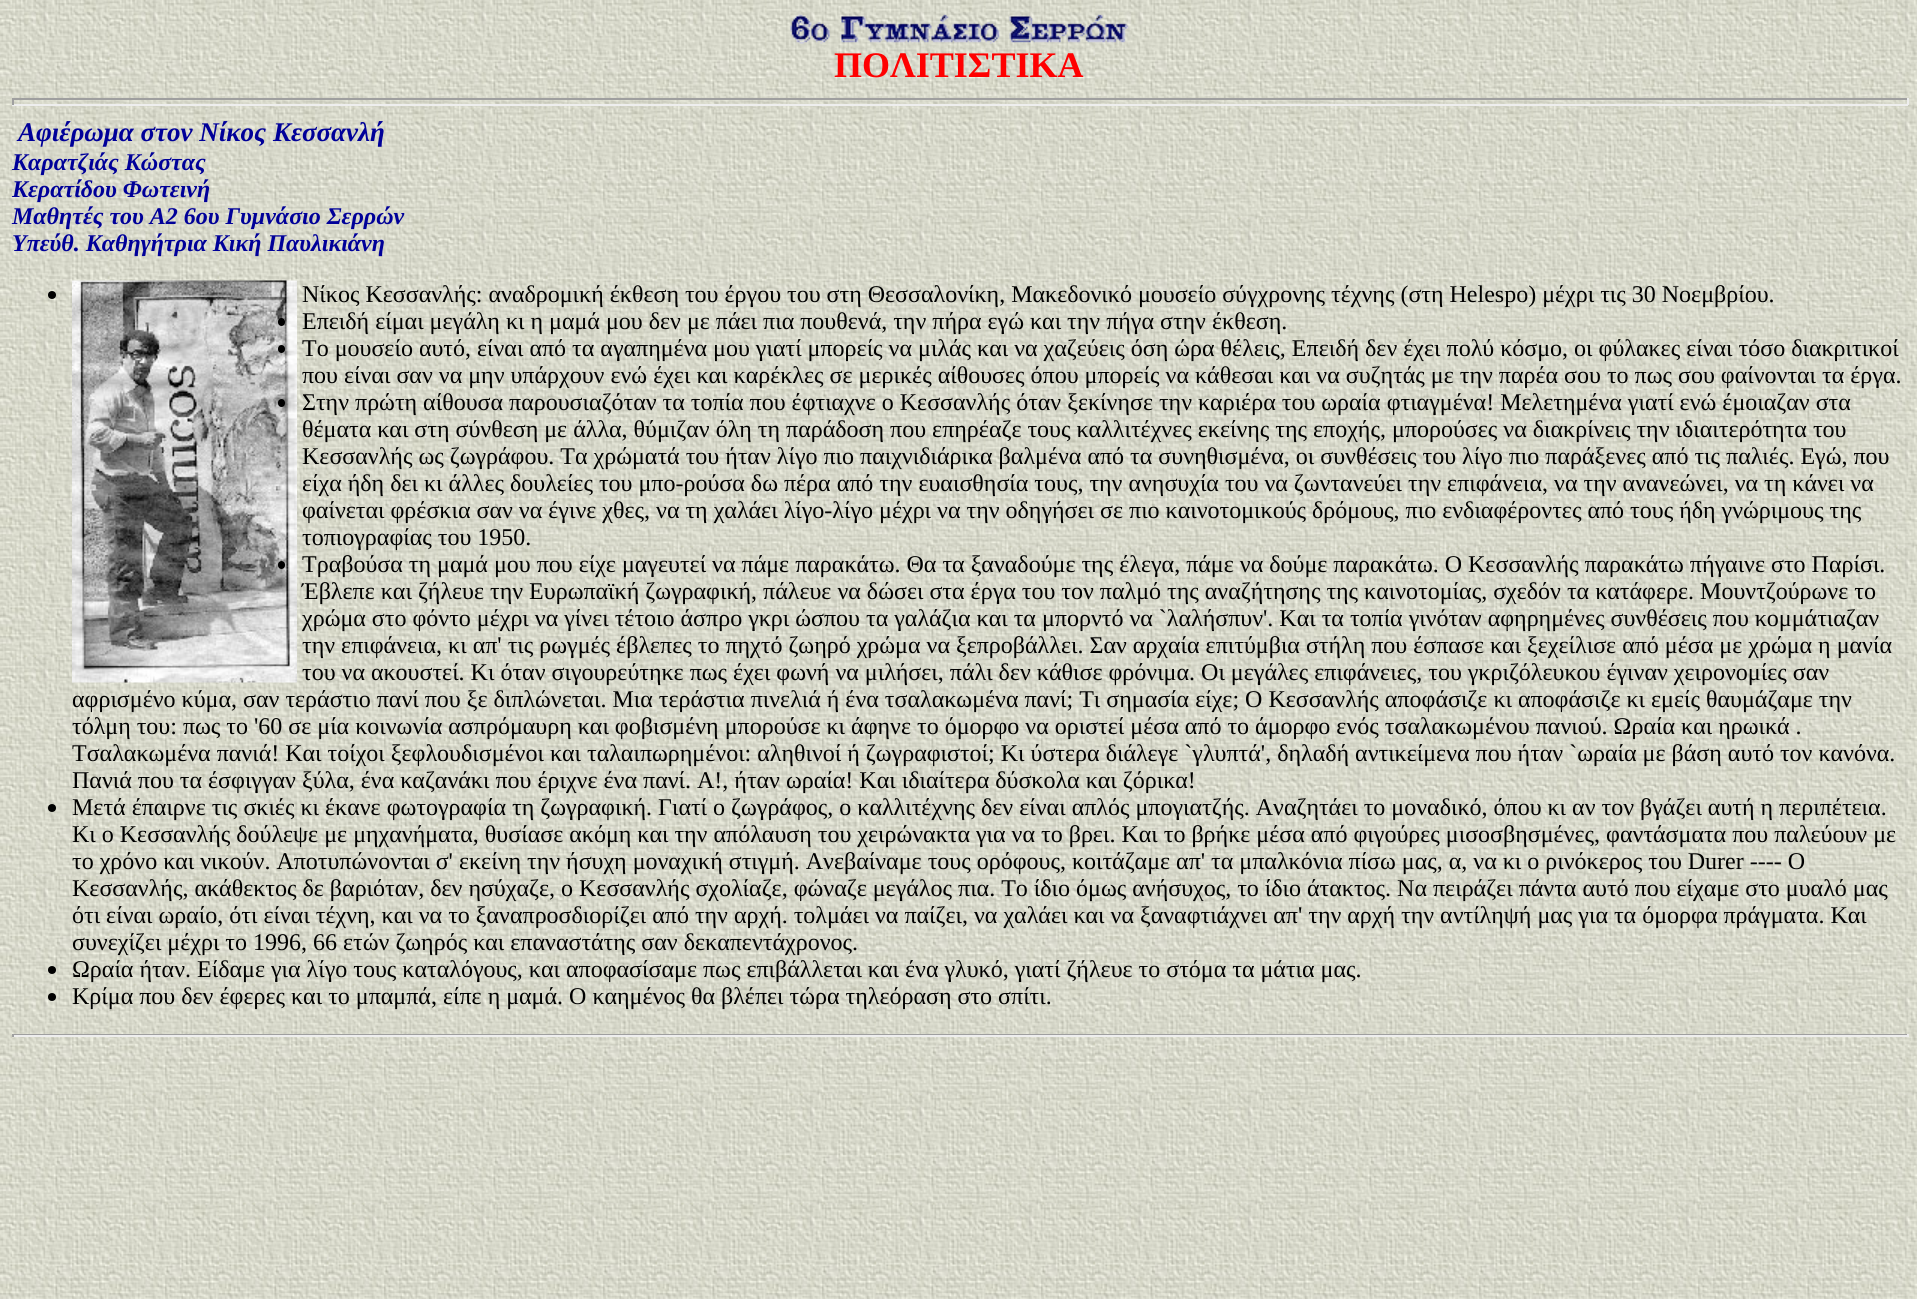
#include <cairo.h>
#include <math.h>
#include <stddef.h>

typedef struct { double x, y; const char *s; } line_t;
typedef struct { double x, y, w, h; unsigned color; } box_t;

static void ink(cairo_t *ctx, unsigned color) {
    cairo_set_source_rgb(ctx, (color >> 16) / 255.0, (color >> 8 & 255) / 255.0, (color & 255) / 255.0);
}

static void round_path(cairo_t *ctx, double x, double y, double w, double h, double r) {
    cairo_new_sub_path(ctx);
    cairo_arc(ctx, x + w - r, y + h - r, r, 0, M_PI / 2);
    cairo_arc(ctx, x + r, y + h - r, r, M_PI / 2, M_PI);
    cairo_arc(ctx, x + r, y + r, r, M_PI, 1.5 * M_PI);
    cairo_arc(ctx, x + w - r, y + r, r, 1.5 * M_PI, 2 * M_PI);
    cairo_close_path(ctx);
}

static void paste(cairo_t *ctx, const char *path, double x, double y, double w, double h) {
    cairo_surface_t *image = cairo_image_surface_create_from_png(path);
    cairo_save(ctx);
    cairo_set_source_surface(ctx, image, x, y);
    cairo_rectangle(ctx, x, y, w, h);
    cairo_fill(ctx);
    cairo_restore(ctx);
    cairo_surface_destroy(image);
}

int main(void) {
    cairo_surface_t *surface = cairo_image_surface_create(CAIRO_FORMAT_RGB24, 1917, 1299);
    cairo_t *ctx = cairo_create(surface);
    cairo_font_options_t *options = cairo_font_options_create();
    cairo_font_options_set_hint_metrics(options, CAIRO_HINT_METRICS_OFF);
    cairo_font_options_set_hint_style(options, CAIRO_HINT_STYLE_NONE);
    cairo_set_font_options(ctx, options);
    cairo_set_miter_limit(ctx, 4);
    ink(ctx, 0xFFFFFF);
    cairo_paint(ctx);
    paste(ctx, "media/1.png", 0, 0, 1917, 1299);
    paste(ctx, "media/2.png", 790, 14, 339, 30);
    cairo_select_font_face(ctx, "Liberation Serif", CAIRO_FONT_SLANT_NORMAL, CAIRO_FONT_WEIGHT_BOLD);
    cairo_set_font_size(ctx, 36);
    ink(ctx, 0xFF0000);
    cairo_move_to(ctx, 834, 77);
    cairo_show_text(ctx, "ΠΟΛΙΤΙΣΤΙΚΑ");
    {
        static const box_t items[] = {
            {12, 98, 1896, 2, 0x9F9F9F},
            {1907, 98, 2, 7, 0xEEEEEE},
            {12, 104, 1896, 2, 0xEEEEEE},
            {12, 98, 2, 7, 0x9F9F9F},
        };
        for (size_t i = 0; i < sizeof items / sizeof *items; i++) {
            ink(ctx, items[i].color);
            cairo_rectangle(ctx, items[i].x, items[i].y, items[i].w, items[i].h);
            cairo_fill(ctx);
        }
    }
    cairo_select_font_face(ctx, "Liberation Serif", CAIRO_FONT_SLANT_ITALIC, CAIRO_FONT_WEIGHT_BOLD);
    cairo_set_font_size(ctx, 27);
    ink(ctx, 0x000099);
    cairo_move_to(ctx, 18, 141);
    cairo_show_text(ctx, "Αφιέρωμα στον Νίκος Κεσσανλή");
    cairo_set_font_size(ctx, 24);
    {
        static const line_t items[] = {
            {12, 170, "Καρατζιάς Κώστας"},
            {12, 197, "Κερατίδου Φωτεινή"},
            {12, 224, "Μαθητές του Α2 6ου Γυμνάσιο Σερρών"},
            {12, 251, "Υπεύθ. Καθηγήτρια Κική Παυλικιάνη"},
        };
        for (size_t i = 0; i < sizeof items / sizeof *items; i++) {
            cairo_move_to(ctx, items[i].x, items[i].y);
            cairo_show_text(ctx, items[i].s);
        }
    }
    ink(ctx, 0x000000);
    cairo_new_path(ctx);
    cairo_arc(ctx, 52, 295, 4, 0, 2 * M_PI);
    cairo_fill(ctx);
    paste(ctx, "media/3.png", 72, 280, 225, 403);
    cairo_select_font_face(ctx, "Liberation Serif", CAIRO_FONT_SLANT_NORMAL, CAIRO_FONT_WEIGHT_NORMAL);
    cairo_move_to(ctx, 302, 302);
    cairo_show_text(ctx, "Νίκος Κεσσανλής: αναδρομική έκθεση του έργου του στη Θεσσαλονίκη, Μακεδονικό μουσείο σύγχρονης τέχνης (στη Helespo) μέχρι τις 30 Νοεμβρίου.");
    round_path(ctx, 278, 318, 7, 8, 3.5);
    cairo_fill(ctx);
    cairo_move_to(ctx, 302, 329);
    cairo_show_text(ctx, "Επειδή είμαι μεγάλη κι η μαμά μου δεν με πάει πια πουθενά, την πήρα εγώ και την πήγα στην έκθεση.");
    round_path(ctx, 278, 345, 7, 8, 3.5);
    cairo_fill(ctx);
    cairo_move_to(ctx, 302, 356);
    cairo_show_text(ctx, "Το μουσείο αυτό, είναι από τα αγαπημένα μου γιατί μπορείς να μιλάς και να χαζεύεις όση ώρα θέλεις, Επειδή δεν έχει πολύ κόσμο, οι φύλακες είναι τόσο διακριτικοί");
    cairo_move_to(ctx, 302, 383);
    cairo_show_text(ctx, "που είναι σαν να μην υπάρχουν ενώ έχει και καρέκλες σε μερικές αίθουσες όπου μπορείς να κάθεσαι και να συζητάς με την παρέα σου το πως σου φαίνονται τα έργα.");
    round_path(ctx, 278, 399, 7, 8, 3.5);
    cairo_fill(ctx);
    {
        static const line_t items[] = {
            {302, 410, "Στην πρώτη αίθουσα παρουσιαζόταν τα τοπία που έφτιαχνε ο Κεσσανλής όταν ξεκίνησε την καριέρα του ωραία φτιαγμένα! Μελετημένα γιατί ενώ έμοιαζαν στα"},
            {302, 437, "θέματα και στη σύνθεση με άλλα, θύμιζαν όλη τη παράδοση που επηρέαζε τους καλλιτέχνες εκείνης της εποχής, μπορούσες να διακρίνεις την ιδιαιτερότητα του"},
            {302, 464, "Κεσσανλής ως ζωγράφου. Τα χρώματά του ήταν λίγο πιο παιχνιδιάρικα βαλμένα από τα συνηθισμένα, οι συνθέσεις του λίγο πιο παράξενες από τις παλιές. Εγώ, που"},
            {302, 491, "είχα ήδη δει κι άλλες δουλείες του μπο-ρούσα δω πέρα από την ευαισθησία τoυς, την ανησυχία του να ζωντανεύει την επιφάνεια, να την ανανεώνει, να τη κάνει να"},
            {302, 518, "φαίνεται φρέσκια σαν να έγινε χθες, να τη χαλάει λίγο-λίγο μέχρι να την οδηγήσει σε πιο καινοτομικούς δρόμους, πιο ενδιαφέροντες από τους ήδη γνώριμους της"},
            {302, 545, "τοπιογραφίας του 1950."},
        };
        for (size_t i = 0; i < sizeof items / sizeof *items; i++) {
            cairo_move_to(ctx, items[i].x, items[i].y);
            cairo_show_text(ctx, items[i].s);
        }
    }
    round_path(ctx, 278, 561, 7, 8, 3.5);
    cairo_fill(ctx);
    {
        static const line_t items[] = {
            {302, 572, "Τραβούσα τη μαμά μου που είχε μαγευτεί να πάμε παρακάτω. Θα τα ξαναδούμε της έλεγα, πάμε να δούμε παρακάτω. Ο Κεσσανλής παρακάτω πήγαινε στο Παρίσι."},
            {302, 599, "Έβλεπε και ζήλευε την Ευρωπαϊκή ζωγραφική, πάλευε να δώσει στα έργα του τον παλμό της αναζήτησης της καινοτομίας, σχεδόν τα κατάφερε. Μουντζούρωνε το"},
            {302, 626, "χρώμα στο φόντο μέχρι να γίνει τέτοιο άσπρο γκρι ώσπου τα γαλάζια και τα μπορντό να `λαλήσπυν'. Και τα τοπία γινόταν αφηρημένες συνθέσεις που κομμάτιαζαν"},
            {302, 653, "την επιφάνεια, κι απ' τις ρωγμές έβλεπες το πηχτό ζωηρό χρώμα να ξεπροβάλλει. Σαν αρχαία επιτύμβια στήλη που έσπασε και ξεχείλισε από μέσα με χρώμα η μανία"},
            {302, 680, "του να ακουστεί. Κι όταν σιγουρεύτηκε πως έχει φωνή να μιλήσει, πάλι δεν κάθισε φρόνιμα. Οι μεγάλες επιφάνειες, του γκριζόλευκου έγιναν χειρονομίες σαν"},
            {72, 707, "αφρισμένο κύμα, σαν τεράστιο πανί που ξε διπλώνεται. Μια τεράστια πινελιά ή ένα τσαλακωμένα πανί; Τι σημασία είχε; Ο Κεσσανλής αποφάσιζε κι αποφάσιζε κι εμείς θαυμάζαμε την"},
            {72, 734, "τόλμη του: πως το '60 σε μία κοινωνία ασπρόμαυρη και φοβισμένη μπορούσε κι άφηνε το όμορφο να οριστεί μέσα από το άμορφο ενός τσαλακωμένου πανιού. Ωραία και ηρωικά ."},
            {72, 761, "Τσαλακωμένα πανιά! Και τοίχοι ξεφλουδισμένοι και ταλαιπωρημένοι: αληθινοί ή ζωγραφιστοί; Κι ύστερα διάλεγε `γλυπτά', δηλαδή αντικείμενα που ήταν `ωραία με βάση αυτό τον κανόνα."},
            {72, 788, "Πανιά που τα έσφιγγαν ξύλα, ένα καζανάκι που έριχνε ένα πανί. Α!, ήταν ωραία! Και ιδιαίτερα δύσκολα και ζόρικα!"},
        };
        for (size_t i = 0; i < sizeof items / sizeof *items; i++) {
            cairo_move_to(ctx, items[i].x, items[i].y);
            cairo_show_text(ctx, items[i].s);
        }
    }
    cairo_new_path(ctx);
    cairo_arc(ctx, 52, 808, 4, 0, 2 * M_PI);
    cairo_fill(ctx);
    {
        static const line_t items[] = {
            {72, 815, "Μετά έπαιρνε τις σκιές κι έκανε φωτογραφία τη ζωγραφική. Γιατί ο ζωγράφος, ο καλλιτέχνης δεν είναι απλός μπογιατζής. Αναζητάει το μοναδικό, όπου κι αν τον βγάζει αυτή η περιπέτεια."},
            {72, 842, "Κι ο Κεσσανλής δούλεψε με μηχανήματα, θυσίασε ακόμη και την απόλαυση του χειρώνακτα για να το βρει. Και το βρήκε μέσα από φιγούρες μισοσβησμένες, φαντάσματα που παλεύουν με"},
            {72, 869, "το χρόνο και νικούν. Αποτυπώνονται σ' εκείνη την ήσυχη μοναχική στιγμή. Ανεβαίναμε τους ορόφους, κοιτάζαμε απ' τα μπαλκόνια πίσω μας, α, να κι ο ρινόκερος του Durer ---- Ο"},
            {72, 896, "Κεσσανλής, ακάθεκτος δε βαριόταν, δεν ησύχαζε, ο Κεσσανλής σχολίαζε, φώναζε μεγάλος πια. Το ίδιο όμως ανήσυχος, το ίδιο άτακτος. Να πειράζει πάντα αυτό που είχαμε στο μυαλό μας"},
            {72, 923, "ότι είναι ωραίο, ότι είναι τέχνη, και να το ξαναπροσδιορίζει από την αρχή. τολμάει να παίζει, να χαλάει και να ξαναφτιάχνει απ' την αρχή την αντίληψή μας για τα όμορφα πράγματα. Και"},
            {72, 950, "συνεχίζει μέχρι το 1996, 66 ετών ζωηρός και επαναστάτης σαν δεκαπεντάχρονος."},
        };
        for (size_t i = 0; i < sizeof items / sizeof *items; i++) {
            cairo_move_to(ctx, items[i].x, items[i].y);
            cairo_show_text(ctx, items[i].s);
        }
    }
    cairo_new_path(ctx);
    cairo_arc(ctx, 52, 970, 4, 0, 2 * M_PI);
    cairo_fill(ctx);
    cairo_move_to(ctx, 72, 977);
    cairo_show_text(ctx, "Ωραία ήταν. Είδαμε για λίγο τους καταλόγους, και αποφασίσαμε πως επιβάλλεται και ένα γλυκό, γιατί ζήλευε το στόμα τα μάτια μας.");
    cairo_new_path(ctx);
    cairo_arc(ctx, 52, 997, 4, 0, 2 * M_PI);
    cairo_fill(ctx);
    cairo_move_to(ctx, 72, 1004);
    cairo_show_text(ctx, "Κρίμα που δεν έφερες και το μπαμπά, είπε η μαμά. Ο καημένος θα βλέπει τώρα τηλεόραση στο σπίτι.");
    {
        static const box_t items[] = {
            {12, 1034, 1896, 1, 0x9F9F9F},
            {1907, 1034, 2, 3, 0xEEEEEE},
            {12, 1035, 1896, 2, 0xEEEEEE},
            {12, 1034, 2, 3, 0x9F9F9F},
        };
        for (size_t i = 0; i < sizeof items / sizeof *items; i++) {
            ink(ctx, items[i].color);
            cairo_rectangle(ctx, items[i].x, items[i].y, items[i].w, items[i].h);
            cairo_fill(ctx);
        }
    }
    cairo_surface_write_to_png(surface, "image.png");
    cairo_font_options_destroy(options);
    cairo_destroy(ctx);
    cairo_surface_destroy(surface);
    return 0;
}
